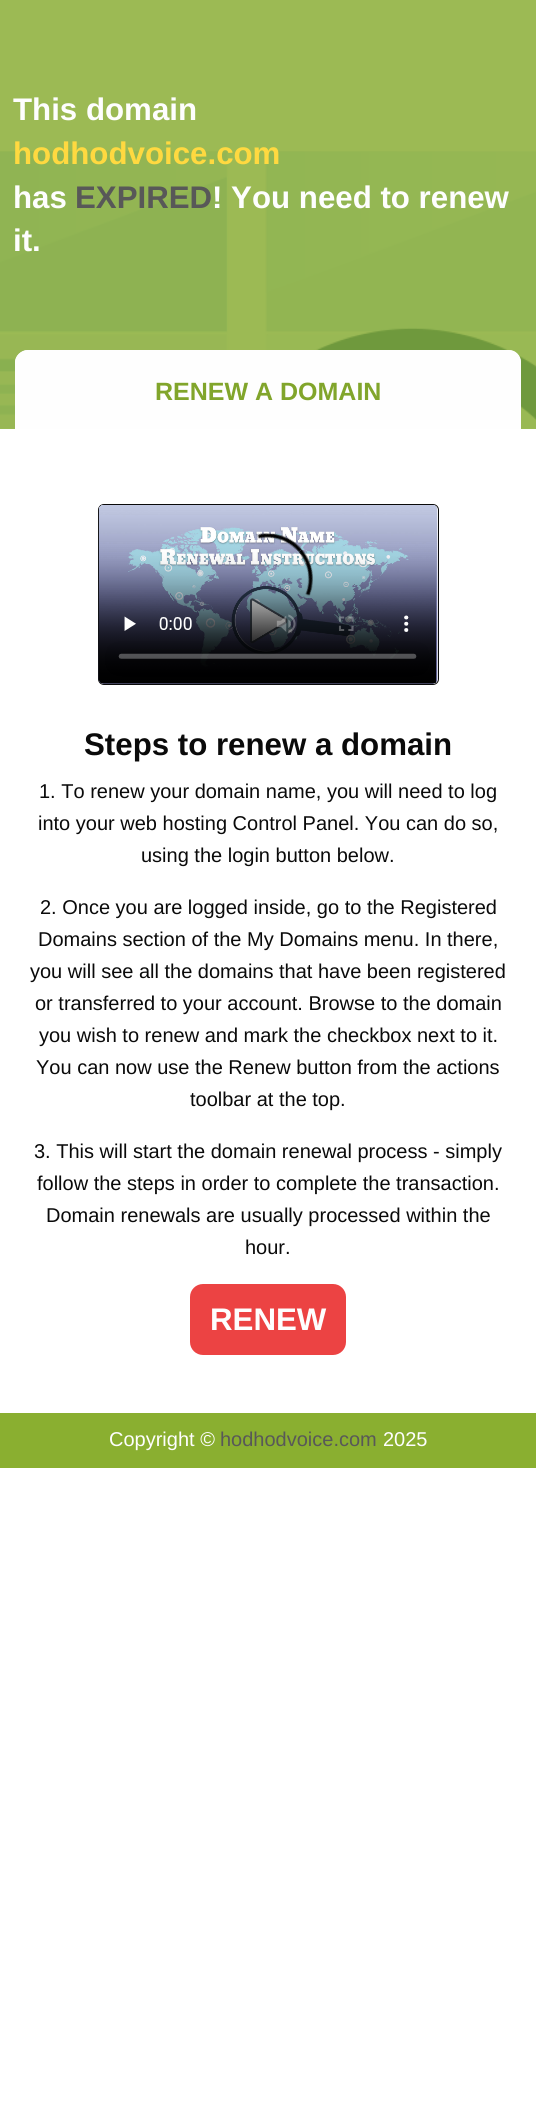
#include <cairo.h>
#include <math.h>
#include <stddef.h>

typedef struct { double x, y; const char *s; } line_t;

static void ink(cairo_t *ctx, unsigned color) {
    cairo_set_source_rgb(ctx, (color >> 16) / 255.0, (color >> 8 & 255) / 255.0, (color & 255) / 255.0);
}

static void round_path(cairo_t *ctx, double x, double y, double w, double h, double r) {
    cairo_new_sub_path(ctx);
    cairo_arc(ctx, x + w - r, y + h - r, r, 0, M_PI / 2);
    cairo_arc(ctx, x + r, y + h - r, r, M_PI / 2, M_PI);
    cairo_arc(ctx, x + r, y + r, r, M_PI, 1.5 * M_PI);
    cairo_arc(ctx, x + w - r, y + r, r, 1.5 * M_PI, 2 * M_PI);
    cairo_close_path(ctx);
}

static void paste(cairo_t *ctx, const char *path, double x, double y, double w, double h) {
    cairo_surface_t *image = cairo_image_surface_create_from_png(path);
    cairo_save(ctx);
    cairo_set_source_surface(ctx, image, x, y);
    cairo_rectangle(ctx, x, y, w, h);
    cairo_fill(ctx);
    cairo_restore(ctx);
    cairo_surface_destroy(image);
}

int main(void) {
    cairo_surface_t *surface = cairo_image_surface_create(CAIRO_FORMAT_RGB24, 536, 2127);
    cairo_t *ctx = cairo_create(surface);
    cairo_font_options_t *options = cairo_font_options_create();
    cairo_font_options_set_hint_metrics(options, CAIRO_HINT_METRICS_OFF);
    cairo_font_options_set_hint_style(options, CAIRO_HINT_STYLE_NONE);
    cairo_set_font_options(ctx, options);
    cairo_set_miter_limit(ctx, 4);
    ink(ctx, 0xFFFFFF);
    cairo_paint(ctx);
    ink(ctx, 0xA1BF59);
    cairo_rectangle(ctx, 0, 0, 536, 429);
    cairo_fill(ctx);
    paste(ctx, "media/1.png", 0, 0, 536, 429);
    cairo_select_font_face(ctx, "Liberation Sans", CAIRO_FONT_SLANT_NORMAL, CAIRO_FONT_WEIGHT_BOLD);
    cairo_set_font_size(ctx, 31.25);
    ink(ctx, 0xFEFEFE);
    cairo_move_to(ctx, 13, 120);
    cairo_show_text(ctx, "This domain");
    ink(ctx, 0xFFD940);
    cairo_move_to(ctx, 13, 164);
    cairo_show_text(ctx, "hodhodvoice.com");
    ink(ctx, 0xFEFEFE);
    cairo_move_to(ctx, 13, 208);
    cairo_show_text(ctx, "has");
    ink(ctx, 0x585858);
    cairo_move_to(ctx, 75, 208);
    cairo_show_text(ctx, "EXPIRED");
    ink(ctx, 0xFEFEFE);
    cairo_move_to(ctx, 212, 208);
    cairo_show_text(ctx, "! You need to renew");
    cairo_move_to(ctx, 13, 251);
    cairo_show_text(ctx, "it.");
    cairo_new_path(ctx);
    cairo_move_to(ctx, 28, 350);
    cairo_line_to(ctx, 508, 350);
    cairo_curve_to(ctx, 515, 350, 521, 356, 521, 363);
    cairo_line_to(ctx, 521, 429);
    cairo_line_to(ctx, 15, 429);
    cairo_line_to(ctx, 15, 363);
    cairo_curve_to(ctx, 15, 356, 21, 350, 28, 350);
    cairo_close_path(ctx);
    cairo_fill(ctx);
    cairo_set_fill_rule(ctx, CAIRO_FILL_RULE_EVEN_ODD);
    cairo_new_path(ctx);
    cairo_move_to(ctx, 28, 350);
    cairo_line_to(ctx, 509, 350);
    cairo_curve_to(ctx, 516, 350, 521, 356, 521, 362);
    cairo_line_to(ctx, 521, 429);
    cairo_line_to(ctx, 15, 429);
    cairo_line_to(ctx, 15, 362);
    cairo_curve_to(ctx, 15, 356, 21, 350, 28, 350);
    cairo_close_path(ctx);
    cairo_move_to(ctx, 28, 354);
    cairo_line_to(ctx, 509, 354);
    cairo_curve_to(ctx, 514, 354, 518, 358, 518, 362);
    cairo_line_to(ctx, 518, 429);
    cairo_line_to(ctx, 19, 429);
    cairo_line_to(ctx, 19, 362);
    cairo_curve_to(ctx, 19, 358, 23, 354, 28, 354);
    cairo_close_path(ctx);
    cairo_fill(ctx);
    cairo_set_font_size(ctx, 25);
    ink(ctx, 0x81A52B);
    cairo_move_to(ctx, 155, 400);
    cairo_show_text(ctx, "RENEW A DOMAIN");
    round_path(ctx, 98.5, 504.5, 340, 180, 5.5);
    ink(ctx, 0x0A0A0A);
    cairo_set_line_width(ctx, 1);
    cairo_stroke(ctx);
    paste(ctx, "media/2.png", 98, 505, 340, 179);
    paste(ctx, "media/3.png", 99, 505, 338, 179);
    cairo_set_font_size(ctx, 31.25);
    cairo_move_to(ctx, 84, 755);
    cairo_show_text(ctx, "Steps to renew a domain");
    cairo_select_font_face(ctx, "Liberation Sans", CAIRO_FONT_SLANT_NORMAL, CAIRO_FONT_WEIGHT_NORMAL);
    cairo_set_font_size(ctx, 20);
    {
        static const line_t items[] = {
            {39, 798, "1. To renew your domain name, you will need to log"},
            {38, 830, "into your web hosting Control Panel. You can do so,"},
            {141, 862, "using the login button below."},
            {40, 914, "2. Once you are logged inside, go to the Registered"},
            {38, 946, "Domains section of the My Domains menu. In there,"},
            {30, 978, "you will see all the domains that have been registered"},
            {35, 1010, "or transferred to your account. Browse to the domain"},
            {39, 1042, "you wish to renew and mark the checkbox next to it."},
            {36, 1074, "You can now use the Renew button from the actions"},
            {190, 1106, "toolbar at the top."},
            {34, 1158, "3. This will start the domain renewal process - simply"},
            {37, 1190, "follow the steps in order to complete the transaction."},
            {46, 1222, "Domain renewals are usually processed within the"},
            {245, 1254, "hour."},
        };
        for (size_t i = 0; i < sizeof items / sizeof *items; i++) {
            cairo_move_to(ctx, items[i].x, items[i].y);
            cairo_show_text(ctx, items[i].s);
        }
    }
    ink(ctx, 0xEC4343);
    round_path(ctx, 190, 1284, 156, 71, 13);
    cairo_fill(ctx);
    cairo_select_font_face(ctx, "Liberation Sans", CAIRO_FONT_SLANT_NORMAL, CAIRO_FONT_WEIGHT_BOLD);
    cairo_set_font_size(ctx, 31.25);
    ink(ctx, 0xFEFEFE);
    cairo_move_to(ctx, 210, 1330);
    cairo_show_text(ctx, "RENEW");
    ink(ctx, 0x8AAF30);
    cairo_rectangle(ctx, 0, 1413, 536, 55);
    cairo_fill(ctx);
    cairo_select_font_face(ctx, "Liberation Sans", CAIRO_FONT_SLANT_NORMAL, CAIRO_FONT_WEIGHT_NORMAL);
    cairo_set_font_size(ctx, 20);
    ink(ctx, 0xFEFEFE);
    cairo_move_to(ctx, 109, 1446);
    cairo_show_text(ctx, "Copyright ©");
    ink(ctx, 0x585858);
    cairo_move_to(ctx, 220, 1446);
    cairo_show_text(ctx, "hodhodvoice.com");
    ink(ctx, 0xFEFEFE);
    cairo_move_to(ctx, 383, 1446);
    cairo_show_text(ctx, "2025");
    cairo_surface_write_to_png(surface, "image.png");
    cairo_font_options_destroy(options);
    cairo_destroy(ctx);
    cairo_surface_destroy(surface);
    return 0;
}
